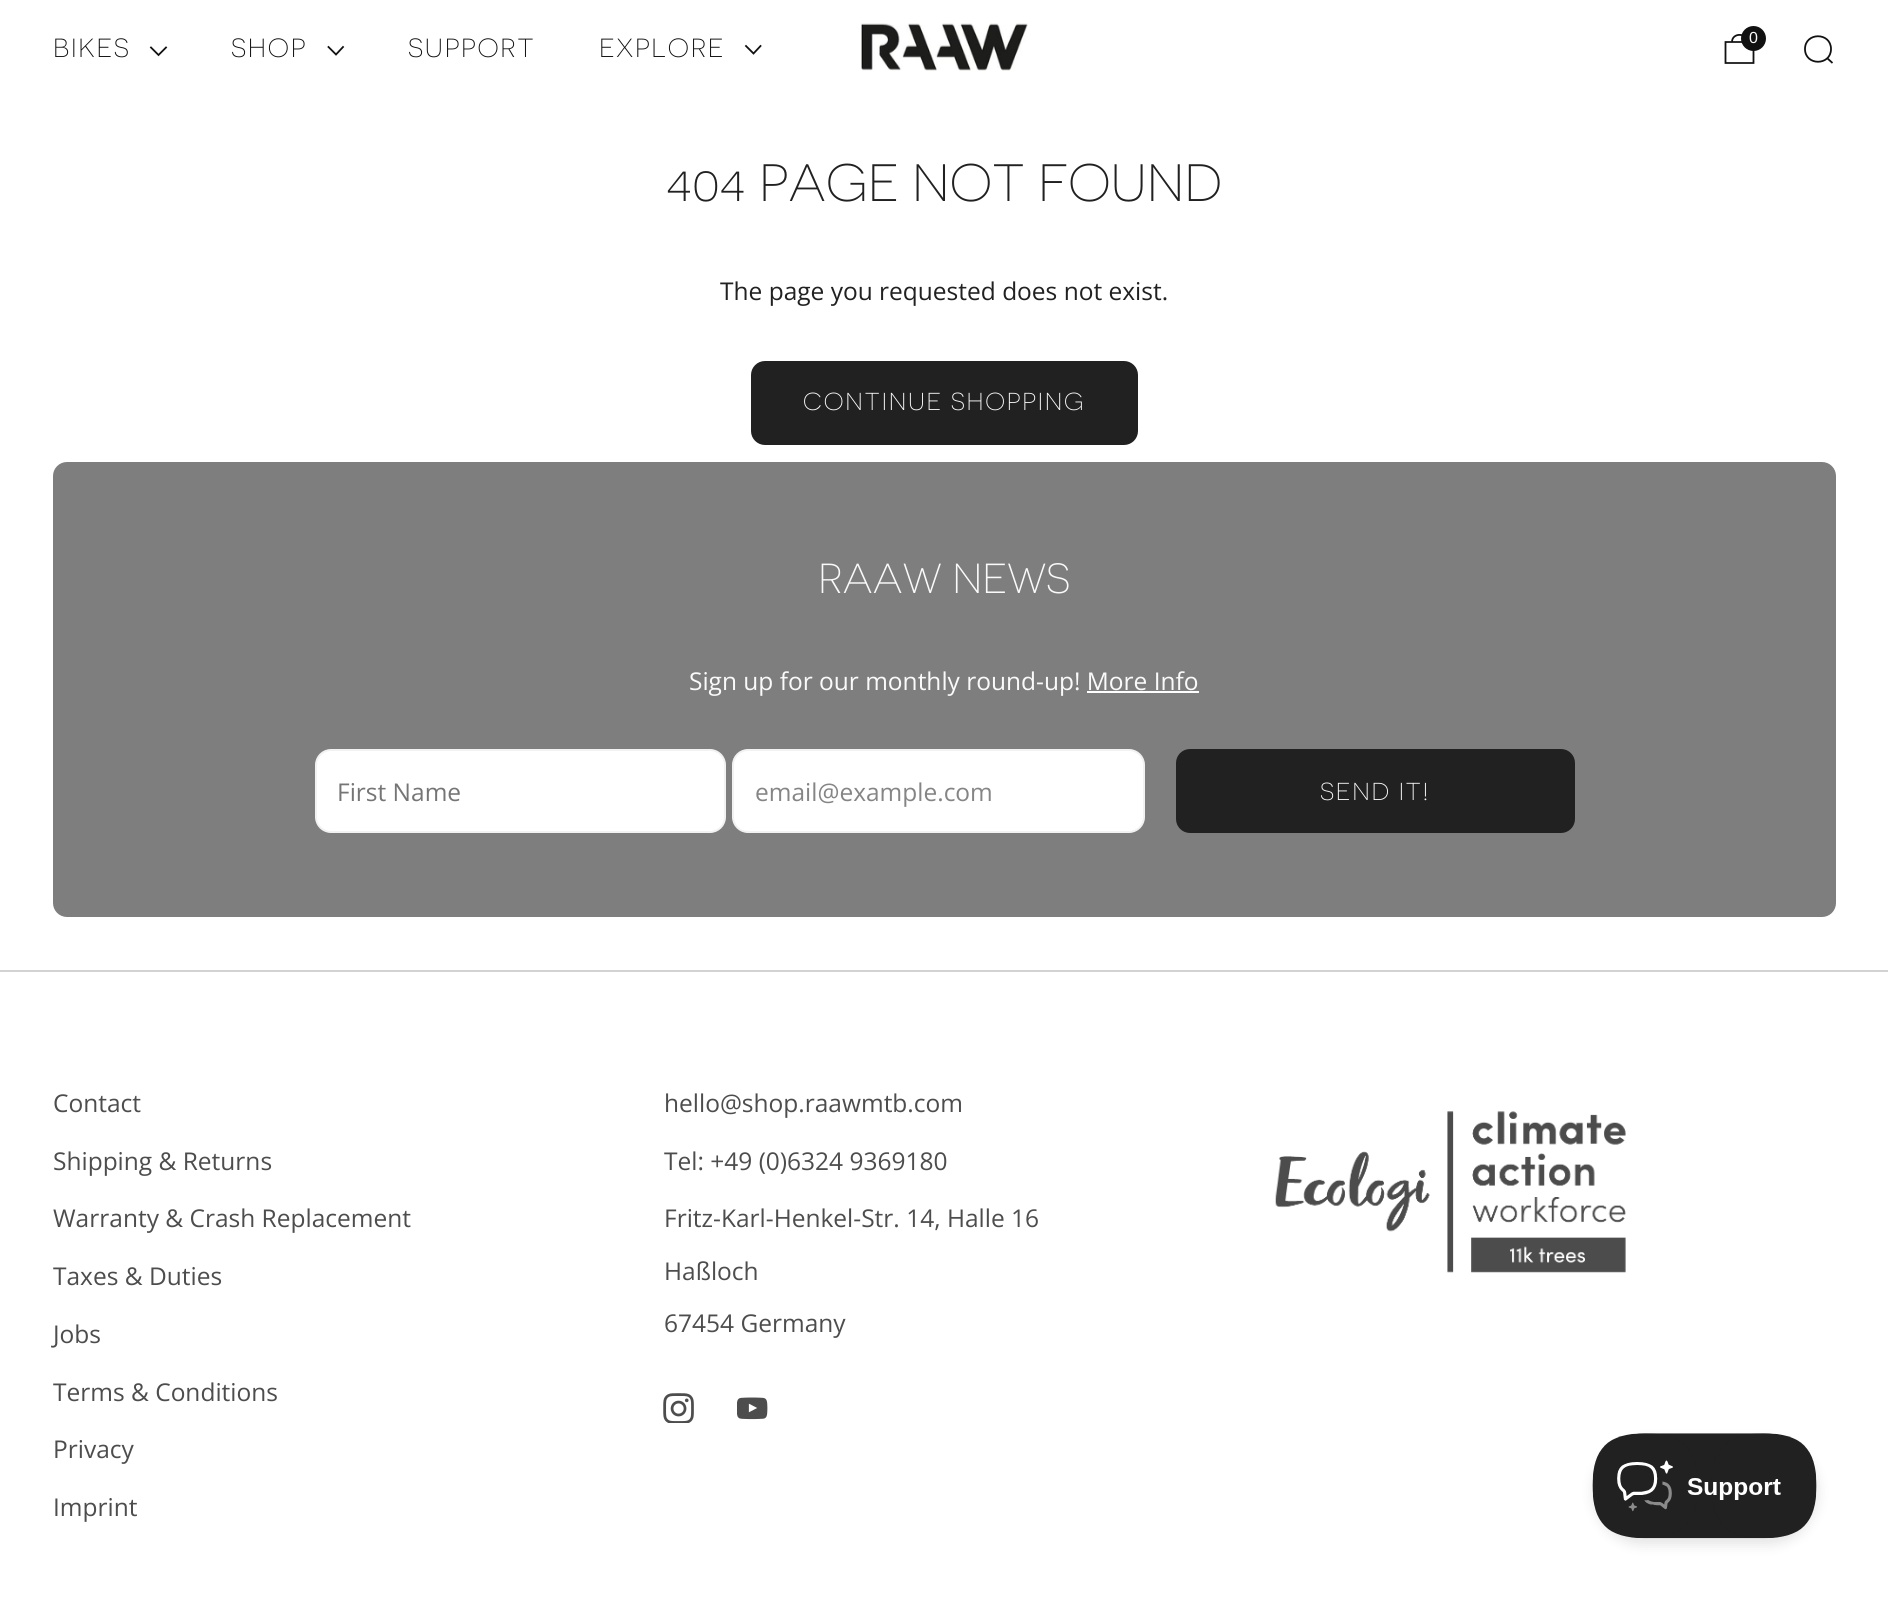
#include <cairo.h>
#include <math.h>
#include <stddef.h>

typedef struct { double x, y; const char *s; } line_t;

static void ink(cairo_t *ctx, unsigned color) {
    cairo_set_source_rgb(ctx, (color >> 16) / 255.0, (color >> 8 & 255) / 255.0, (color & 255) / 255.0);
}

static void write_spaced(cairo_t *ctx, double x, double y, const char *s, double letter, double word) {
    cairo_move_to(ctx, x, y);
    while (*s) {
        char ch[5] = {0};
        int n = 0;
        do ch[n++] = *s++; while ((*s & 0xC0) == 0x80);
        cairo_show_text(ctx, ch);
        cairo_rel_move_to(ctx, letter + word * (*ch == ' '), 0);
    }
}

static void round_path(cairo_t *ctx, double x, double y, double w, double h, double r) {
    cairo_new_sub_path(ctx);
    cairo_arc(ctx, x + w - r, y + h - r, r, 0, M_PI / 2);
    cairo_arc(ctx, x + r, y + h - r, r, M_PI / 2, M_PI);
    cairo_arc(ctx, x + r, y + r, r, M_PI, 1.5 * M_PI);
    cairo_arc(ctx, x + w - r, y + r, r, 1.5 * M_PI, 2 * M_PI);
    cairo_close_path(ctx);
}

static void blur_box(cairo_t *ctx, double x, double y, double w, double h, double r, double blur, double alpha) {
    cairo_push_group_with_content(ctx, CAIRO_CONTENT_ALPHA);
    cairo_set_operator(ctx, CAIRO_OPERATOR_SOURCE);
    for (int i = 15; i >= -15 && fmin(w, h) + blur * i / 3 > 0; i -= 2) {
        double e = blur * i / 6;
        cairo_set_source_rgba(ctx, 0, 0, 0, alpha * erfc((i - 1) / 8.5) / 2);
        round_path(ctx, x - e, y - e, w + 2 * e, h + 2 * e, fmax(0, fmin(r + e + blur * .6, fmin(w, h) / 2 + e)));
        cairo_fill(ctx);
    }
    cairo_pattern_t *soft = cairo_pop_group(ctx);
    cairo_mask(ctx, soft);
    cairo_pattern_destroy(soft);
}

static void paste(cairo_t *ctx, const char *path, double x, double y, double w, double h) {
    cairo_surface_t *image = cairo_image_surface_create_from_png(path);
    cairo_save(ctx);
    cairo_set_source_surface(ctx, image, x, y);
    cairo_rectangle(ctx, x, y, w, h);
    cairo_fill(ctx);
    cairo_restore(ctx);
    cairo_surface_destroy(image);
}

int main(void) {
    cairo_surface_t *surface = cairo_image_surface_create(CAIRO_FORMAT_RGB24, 1888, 1608);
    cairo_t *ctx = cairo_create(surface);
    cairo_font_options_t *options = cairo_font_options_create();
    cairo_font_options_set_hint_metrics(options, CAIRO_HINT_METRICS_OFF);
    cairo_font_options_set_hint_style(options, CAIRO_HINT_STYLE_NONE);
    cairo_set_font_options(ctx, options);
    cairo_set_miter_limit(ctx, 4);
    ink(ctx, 0xFFFFFF);
    cairo_paint(ctx);
    paste(ctx, "media/1.png", 861, 23, 167, 48);
    cairo_select_font_face(ctx, "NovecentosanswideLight", CAIRO_FONT_SLANT_NORMAL, CAIRO_FONT_WEIGHT_NORMAL);
    cairo_set_font_size(ctx, 26.25);
    ink(ctx, 0x111111);
    write_spaced(ctx, 53, 57, "BIKES", 1.75, 0);
    cairo_new_path(ctx);
    cairo_move_to(ctx, 166, 47.5);
    cairo_line_to(ctx, 158.5, 55);
    cairo_line_to(ctx, 151, 47.5);
    cairo_set_line_width(ctx, 1.8);
    cairo_set_line_cap(ctx, CAIRO_LINE_CAP_SQUARE);
    cairo_stroke(ctx);
    write_spaced(ctx, 231, 57, "SHOP", 1.75, 0);
    cairo_new_path(ctx);
    cairo_move_to(ctx, 343, 47);
    cairo_line_to(ctx, 336, 54.5);
    cairo_line_to(ctx, 328.5, 47);
    cairo_stroke(ctx);
    write_spaced(ctx, 408, 57, "SUPPORT", 1.75, 0);
    write_spaced(ctx, 599, 57, "EXPLORE", 1.75, 0);
    cairo_new_path(ctx);
    cairo_move_to(ctx, 760.5, 46);
    cairo_line_to(ctx, 753.5, 53.5);
    cairo_line_to(ctx, 746, 46);
    cairo_stroke(ctx);
    cairo_new_path(ctx);
    cairo_move_to(ctx, 1747, 42);
    cairo_curve_to(ctx, 1747, 32.5, 1732, 32.5, 1732, 42);
    cairo_move_to(ctx, 1725.5, 42);
    cairo_line_to(ctx, 1753.5, 42);
    cairo_line_to(ctx, 1753.5, 63);
    cairo_line_to(ctx, 1725.5, 63);
    cairo_close_path(ctx);
    cairo_set_line_cap(ctx, CAIRO_LINE_CAP_BUTT);
    cairo_stroke(ctx);
    cairo_arc(ctx, 1753.5, 38.5, 12.5, 0, 2 * M_PI);
    cairo_fill(ctx);
    cairo_select_font_face(ctx, "Liberation Sans", CAIRO_FONT_SLANT_NORMAL, CAIRO_FONT_WEIGHT_NORMAL);
    cairo_set_font_size(ctx, 16);
    ink(ctx, 0xFAFAFA);
    cairo_move_to(ctx, 1749, 43);
    cairo_show_text(ctx, "0");
    cairo_new_path(ctx);
    cairo_move_to(ctx, 1827, 58);
    cairo_line_to(ctx, 1832.5, 63);
    cairo_move_to(ctx, 1831, 49);
    cairo_curve_to(ctx, 1831, 66, 1805, 66, 1805, 49);
    cairo_curve_to(ctx, 1805, 32, 1831, 32, 1831, 49);
    cairo_close_path(ctx);
    ink(ctx, 0x111111);
    cairo_stroke(ctx);
    cairo_select_font_face(ctx, "NovecentosanswideLight", CAIRO_FONT_SLANT_NORMAL, CAIRO_FONT_WEIGHT_NORMAL);
    cairo_set_font_size(ctx, 52.5);
    ink(ctx, 0x212121);
    cairo_move_to(ctx, 666, 201);
    cairo_show_text(ctx, "404 PAGE NOT FOUND");
    cairo_select_font_face(ctx, "Open Sans", CAIRO_FONT_SLANT_NORMAL, CAIRO_FONT_WEIGHT_NORMAL);
    cairo_set_font_size(ctx, 24.5);
    cairo_move_to(ctx, 720, 300);
    cairo_show_text(ctx, "The page you requested does not exist.");
    round_path(ctx, 751, 361, 387, 84, 14);
    cairo_fill(ctx);
    cairo_select_font_face(ctx, "NovecentosanswideLight", CAIRO_FONT_SLANT_NORMAL, CAIRO_FONT_WEIGHT_NORMAL);
    ink(ctx, 0xFAFAFA);
    write_spaced(ctx, 803, 410, "CONTINUE SHOPPING", 1.75, 0);
    ink(ctx, 0x7E7E7E);
    round_path(ctx, 53, 462, 1783, 455, 14);
    cairo_fill(ctx);
    cairo_set_font_size(ctx, 42);
    ink(ctx, 0xFAFAFA);
    cairo_move_to(ctx, 818, 593);
    cairo_show_text(ctx, "RAAW NEWS");
    cairo_select_font_face(ctx, "Open Sans", CAIRO_FONT_SLANT_NORMAL, CAIRO_FONT_WEIGHT_NORMAL);
    cairo_set_font_size(ctx, 24.5);
    cairo_move_to(ctx, 689, 690);
    cairo_show_text(ctx, "Sign up for our monthly round-up! More Info");
    ink(ctx, 0xFFFFFF);
    cairo_rectangle(ctx, 1087, 691, 112, 2);
    cairo_fill(ctx);
    round_path(ctx, 316, 750, 409, 82, 15);
    cairo_fill_preserve(ctx);
    ink(ctx, 0xF2F2F2);
    cairo_set_line_width(ctx, 2);
    cairo_stroke(ctx);
    ink(ctx, 0x757575);
    cairo_move_to(ctx, 337, 801);
    cairo_show_text(ctx, "First Name");
    ink(ctx, 0xFFFFFF);
    round_path(ctx, 733, 750, 411, 82, 15);
    cairo_fill_preserve(ctx);
    ink(ctx, 0xF2F2F2);
    cairo_stroke(ctx);
    ink(ctx, 0x858585);
    cairo_move_to(ctx, 755, 801);
    cairo_show_text(ctx, "email@example.com");
    ink(ctx, 0x212121);
    round_path(ctx, 1176, 749, 399, 84, 14);
    cairo_fill(ctx);
    cairo_select_font_face(ctx, "NovecentosanswideLight", CAIRO_FONT_SLANT_NORMAL, CAIRO_FONT_WEIGHT_NORMAL);
    ink(ctx, 0xFAFAFA);
    write_spaced(ctx, 1320, 800, "SEND IT!", 1.75, 0);
    ink(ctx, 0xD3D3D3);
    cairo_rectangle(ctx, 0, 970, 1888, 2);
    cairo_fill(ctx);
    cairo_select_font_face(ctx, "Open Sans", CAIRO_FONT_SLANT_NORMAL, CAIRO_FONT_WEIGHT_NORMAL);
    ink(ctx, 0x4D4D4D);
    {
        static const line_t items[] = {
            {53, 1112, "Contact"},
            {53, 1170, "Shipping & Returns"},
            {53, 1227, "Warranty & Crash Replacement"},
            {53, 1285, "Taxes & Duties"},
            {53, 1343, "Jobs"},
            {53, 1401, "Terms & Conditions"},
            {53, 1458, "Privacy"},
            {53, 1516, "Imprint"},
            {664, 1112, "hello@shop.raawmtb.com"},
            {664, 1170, "Tel: +49 (0)6324 9369180"},
            {664, 1227, "Fritz-Karl-Henkel-Str. 14, Halle 16"},
            {664, 1280, "Haßloch"},
            {664, 1332, "67454 Germany"},
        };
        for (size_t i = 0; i < sizeof items / sizeof *items; i++) {
            cairo_move_to(ctx, items[i].x, items[i].y);
            cairo_show_text(ctx, items[i].s);
        }
    }
    paste(ctx, "media/2.png", 663, 1393, 31, 30);
    paste(ctx, "media/3.png", 737, 1397, 31, 23);
    paste(ctx, "media/4.png", 1275, 1111, 351, 162);
    ink(ctx, 0x000000);
    blur_box(ctx, 1593, 1440, 225, 105, 52.5, 6, 0.1);
    paste(ctx, "media/5.png", 1592, 1433, 225, 106);
    cairo_surface_write_to_png(surface, "image.png");
    cairo_font_options_destroy(options);
    cairo_destroy(ctx);
    cairo_surface_destroy(surface);
    return 0;
}
